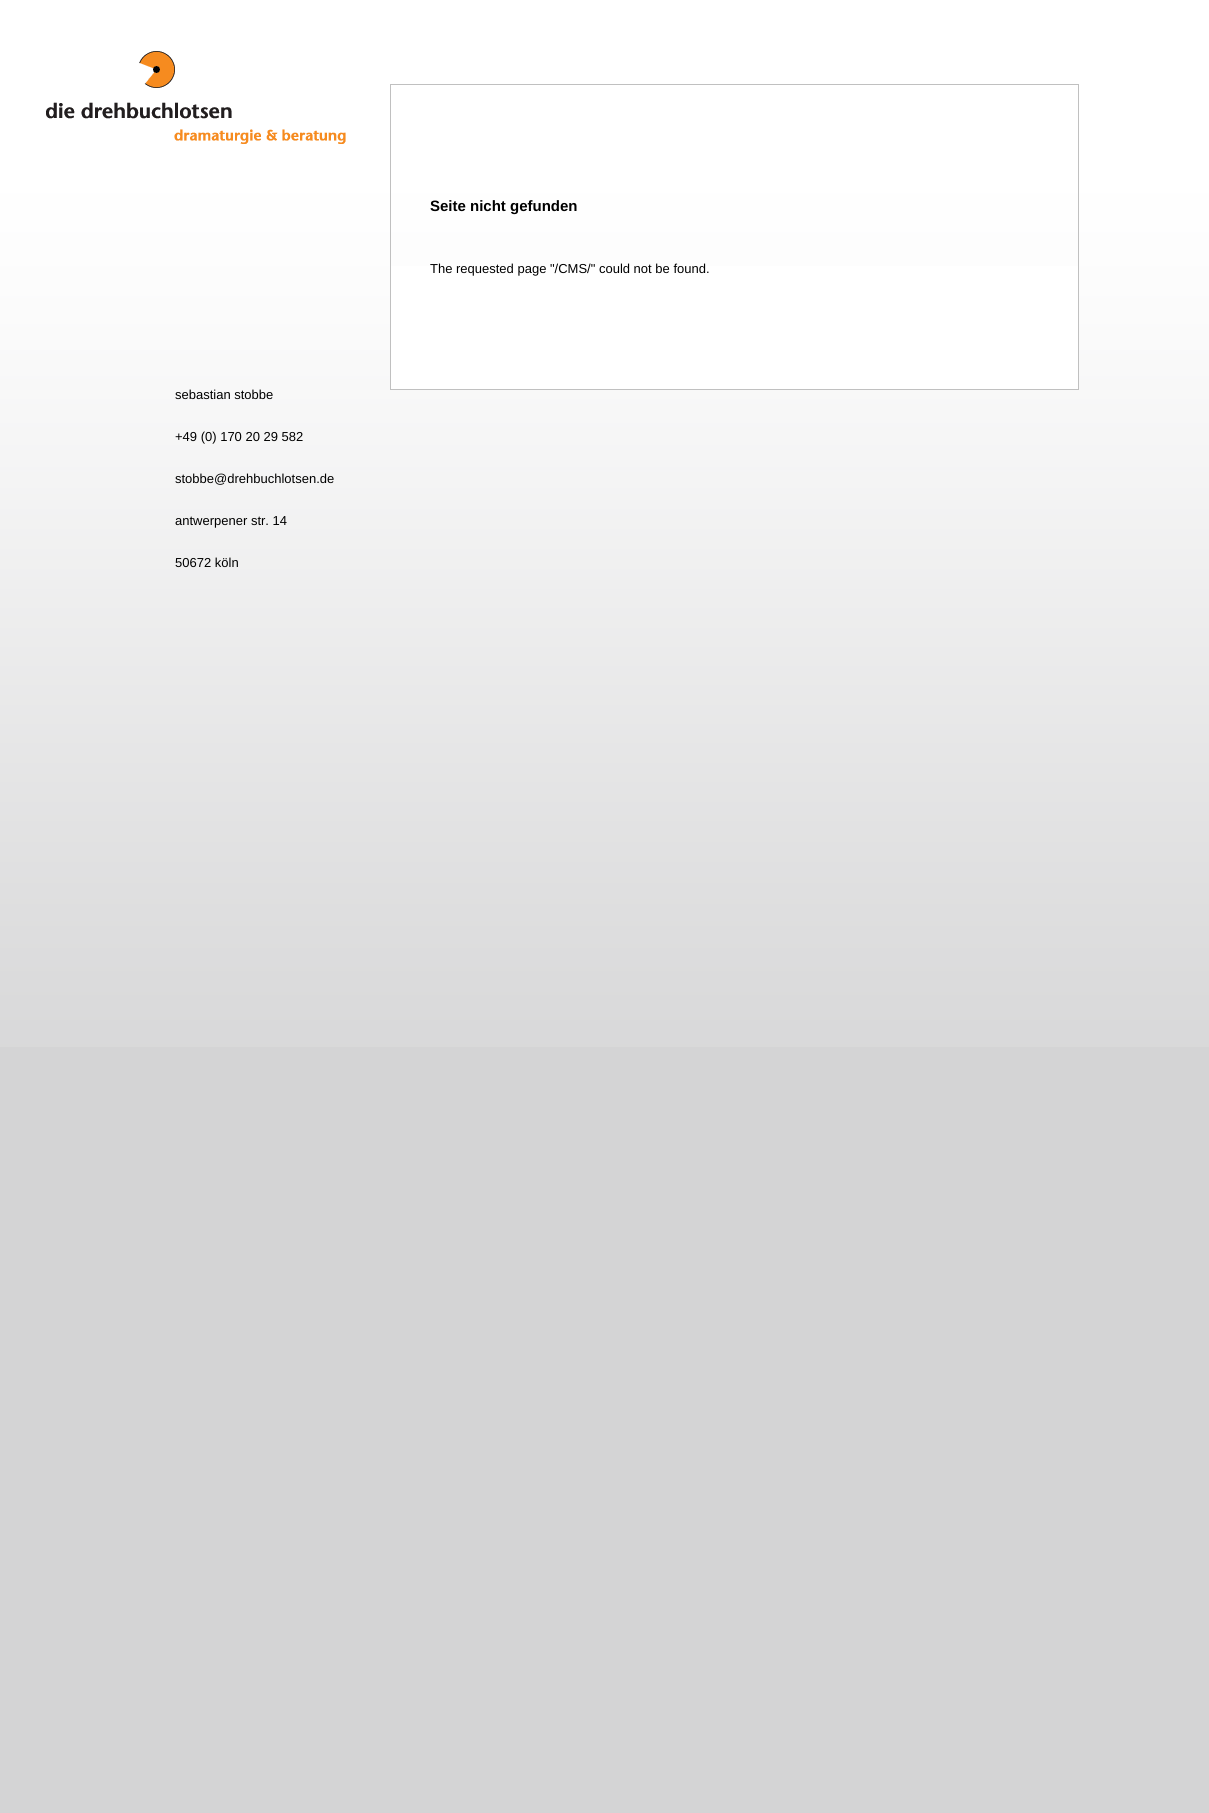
#include <cairo.h>
#include <math.h>
#include <stddef.h>

typedef struct { double x, y; const char *s; } line_t;

static void ink(cairo_t *ctx, unsigned color) {
    cairo_set_source_rgb(ctx, (color >> 16) / 255.0, (color >> 8 & 255) / 255.0, (color & 255) / 255.0);
}

static void paste(cairo_t *ctx, const char *path, double x, double y, double w, double h) {
    cairo_surface_t *image = cairo_image_surface_create_from_png(path);
    cairo_save(ctx);
    cairo_set_source_surface(ctx, image, x, y);
    cairo_rectangle(ctx, x, y, w, h);
    cairo_fill(ctx);
    cairo_restore(ctx);
    cairo_surface_destroy(image);
}

int main(void) {
    cairo_surface_t *surface = cairo_image_surface_create(CAIRO_FORMAT_RGB24, 1209, 1813);
    cairo_t *ctx = cairo_create(surface);
    cairo_font_options_t *options = cairo_font_options_create();
    cairo_font_options_set_hint_metrics(options, CAIRO_HINT_METRICS_OFF);
    cairo_font_options_set_hint_style(options, CAIRO_HINT_STYLE_NONE);
    cairo_set_font_options(ctx, options);
    cairo_set_miter_limit(ctx, 4);
    ink(ctx, 0xD4D4D5);
    cairo_paint(ctx);
    paste(ctx, "media/1.png", 0, 0, 1209, 1047);
    paste(ctx, "media/2.png", 46, 51, 300, 93);
    ink(ctx, 0xFFFFFF);
    cairo_rectangle(ctx, 391, 266, 687, 123);
    cairo_fill(ctx);
    cairo_rectangle(ctx, 390.5, 84.5, 688, 305);
    ink(ctx, 0xC0C0C0);
    cairo_set_line_width(ctx, 1);
    cairo_stroke(ctx);
    cairo_select_font_face(ctx, "Liberation Sans", CAIRO_FONT_SLANT_NORMAL, CAIRO_FONT_WEIGHT_BOLD);
    cairo_set_font_size(ctx, 15);
    ink(ctx, 0x000000);
    cairo_move_to(ctx, 430, 211);
    cairo_show_text(ctx, "Seite nicht gefunden");
    cairo_select_font_face(ctx, "Liberation Sans", CAIRO_FONT_SLANT_NORMAL, CAIRO_FONT_WEIGHT_NORMAL);
    cairo_set_font_size(ctx, 13);
    {
        static const line_t items[] = {
            {430, 273, "The requested page \"/CMS/\" could not be found."},
            {175, 399, "sebastian stobbe"},
            {175, 441, "+49 (0) 170 20 29 582"},
            {175, 483, "stobbe@drehbuchlotsen.de"},
            {175, 525, "antwerpener str. 14"},
            {175, 567, "50672 köln"},
        };
        for (size_t i = 0; i < sizeof items / sizeof *items; i++) {
            cairo_move_to(ctx, items[i].x, items[i].y);
            cairo_show_text(ctx, items[i].s);
        }
    }
    cairo_surface_write_to_png(surface, "image.png");
    cairo_font_options_destroy(options);
    cairo_destroy(ctx);
    cairo_surface_destroy(surface);
    return 0;
}
